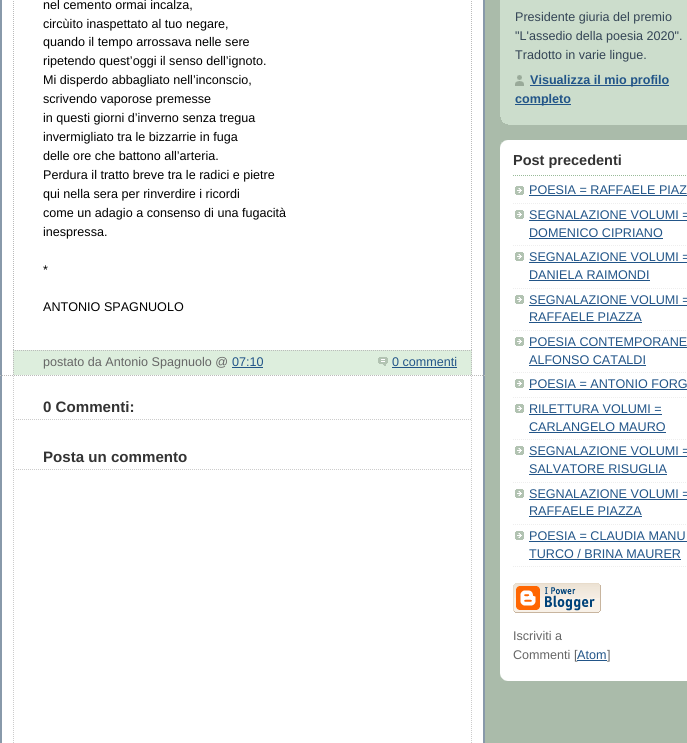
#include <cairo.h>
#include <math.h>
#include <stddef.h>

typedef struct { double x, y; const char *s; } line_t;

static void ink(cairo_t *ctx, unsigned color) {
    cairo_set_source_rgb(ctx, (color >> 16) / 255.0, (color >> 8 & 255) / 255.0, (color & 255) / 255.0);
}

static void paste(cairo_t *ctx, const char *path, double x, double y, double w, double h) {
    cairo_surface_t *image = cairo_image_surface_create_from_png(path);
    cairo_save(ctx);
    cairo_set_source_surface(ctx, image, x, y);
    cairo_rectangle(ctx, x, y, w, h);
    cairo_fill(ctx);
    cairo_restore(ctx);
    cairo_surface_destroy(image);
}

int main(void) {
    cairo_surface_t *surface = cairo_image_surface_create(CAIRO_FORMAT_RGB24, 687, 743);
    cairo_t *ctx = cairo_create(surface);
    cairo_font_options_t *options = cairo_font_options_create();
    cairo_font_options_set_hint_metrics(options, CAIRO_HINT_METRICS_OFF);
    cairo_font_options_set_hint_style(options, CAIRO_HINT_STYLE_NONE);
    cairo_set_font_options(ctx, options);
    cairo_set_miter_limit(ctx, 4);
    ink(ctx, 0xAABBAA);
    cairo_paint(ctx);
    ink(ctx, 0xFFFFFF);
    cairo_rectangle(ctx, 2, 0, 481, 743);
    cairo_fill(ctx);
    paste(ctx, "media/1.png", 0, 0, 485, 743);
    cairo_new_path(ctx);
    cairo_move_to(ctx, 0, 375.5);
    cairo_line_to(ctx, 485, 375.5);
    ink(ctx, 0xBBBBBB);
    cairo_set_line_width(ctx, 1);
    cairo_set_dash(ctx, (double[]){1, 1}, 2, 0);
    cairo_stroke(ctx);
    cairo_new_path(ctx);
    cairo_move_to(ctx, 471.5, -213);
    cairo_line_to(ctx, 471.5, 350);
    cairo_stroke(ctx);
    cairo_new_path(ctx);
    cairo_move_to(ctx, 13.5, -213);
    cairo_line_to(ctx, 13.5, 350);
    cairo_stroke(ctx);
    cairo_select_font_face(ctx, "Liberation Sans", CAIRO_FONT_SLANT_NORMAL, CAIRO_FONT_WEIGHT_NORMAL);
    cairo_set_font_size(ctx, 12.6);
    ink(ctx, 0x000000);
    {
        static const line_t items[] = {
            {43, 9, "nel cemento ormai incalza,"},
            {43, 28, "circùito inaspettato al tuo negare,"},
            {43, 46, "quando il tempo arrossava nelle sere"},
            {43, 65, "ripetendo quest’oggi il senso dell’ignoto."},
            {43, 84, "Mi disperdo abbagliato nell’inconscio,"},
            {43, 103, "scrivendo vaporose premesse"},
            {43, 122, "in questi giorni d’inverno senza tregua"},
            {43, 141, "invermigliato tra le bizzarrie in fuga"},
            {43, 160, "delle ore che battono all’arteria."},
            {43, 179, "Perdura il tratto breve tra le radici e pietre"},
            {43, 198, "qui nella sera per rinverdire i ricordi"},
            {43, 217, "come un adagio a consenso di una fugacità"},
            {43, 236, "inespressa."},
            {43, 274, "*"},
            {43, 311, "ANTONIO SPAGNUOLO"},
        };
        for (size_t i = 0; i < sizeof items / sizeof *items; i++) {
            cairo_move_to(ctx, items[i].x, items[i].y);
            cairo_show_text(ctx, items[i].s);
        }
    }
    ink(ctx, 0xDDEEDD);
    cairo_rectangle(ctx, 13, 350, 459, 25);
    cairo_fill(ctx);
    cairo_new_path(ctx);
    cairo_move_to(ctx, 13, 350.5);
    cairo_line_to(ctx, 472, 350.5);
    ink(ctx, 0xBBBBBB);
    cairo_stroke(ctx);
    cairo_new_path(ctx);
    cairo_move_to(ctx, 471.5, 350);
    cairo_line_to(ctx, 471.5, 375);
    cairo_stroke(ctx);
    cairo_new_path(ctx);
    cairo_move_to(ctx, 13.5, 350);
    cairo_line_to(ctx, 13.5, 375);
    cairo_stroke(ctx);
    ink(ctx, 0x666666);
    cairo_move_to(ctx, 43, 366);
    cairo_show_text(ctx, "postato da Antonio Spagnuolo @");
    ink(ctx, 0x225588);
    cairo_move_to(ctx, 232, 366);
    cairo_show_text(ctx, "07:10");
    cairo_rectangle(ctx, 232, 367, 31, 1);
    cairo_fill(ctx);
    paste(ctx, "media/2.png", 378, 357, 10, 9);
    cairo_move_to(ctx, 392, 366);
    cairo_show_text(ctx, "0 commenti");
    cairo_rectangle(ctx, 392, 367, 65, 1);
    cairo_fill(ctx);
    cairo_new_path(ctx);
    cairo_move_to(ctx, 471.5, 376);
    cairo_line_to(ctx, 471.5, 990);
    ink(ctx, 0xCCCCCC);
    cairo_stroke(ctx);
    cairo_new_path(ctx);
    cairo_move_to(ctx, 13.5, 376);
    cairo_line_to(ctx, 13.5, 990);
    cairo_stroke(ctx);
    cairo_new_path(ctx);
    cairo_move_to(ctx, 14, 419.5);
    cairo_line_to(ctx, 471, 419.5);
    cairo_stroke(ctx);
    cairo_select_font_face(ctx, "Liberation Sans", CAIRO_FONT_SLANT_NORMAL, CAIRO_FONT_WEIGHT_BOLD);
    cairo_set_font_size(ctx, 15.1);
    ink(ctx, 0x333333);
    cairo_move_to(ctx, 43, 412);
    cairo_show_text(ctx, "0 Commenti:");
    cairo_new_path(ctx);
    cairo_move_to(ctx, 14, 469.5);
    cairo_line_to(ctx, 471, 469.5);
    ink(ctx, 0xCCCCCC);
    cairo_stroke(ctx);
    ink(ctx, 0x333333);
    cairo_move_to(ctx, 43, 462);
    cairo_show_text(ctx, "Posta un commento");
    ink(ctx, 0xCCDDCC);
    cairo_rectangle(ctx, 500, 0, 187, 125);
    cairo_fill(ctx);
    paste(ctx, "media/3.png", 500, 117, 8, 8);
    cairo_select_font_face(ctx, "Liberation Sans", CAIRO_FONT_SLANT_NORMAL, CAIRO_FONT_WEIGHT_NORMAL);
    cairo_set_font_size(ctx, 12.6);
    ink(ctx, 0x334455);
    {
        static const line_t items[] = {
            {515, 21, "Presidente giuria del premio"},
            {515, 40, "\"L'assedio della poesia 2020\"."},
            {515, 59, "Tradotto in varie lingue."},
        };
        for (size_t i = 0; i < sizeof items / sizeof *items; i++) {
            cairo_move_to(ctx, items[i].x, items[i].y);
            cairo_show_text(ctx, items[i].s);
        }
    }
    paste(ctx, "media/4.png", 515, 75, 9, 11);
    ink(ctx, 0x225588);
    cairo_rectangle(ctx, 530, 85, 139, 1);
    cairo_fill(ctx);
    cairo_select_font_face(ctx, "Liberation Sans", CAIRO_FONT_SLANT_NORMAL, CAIRO_FONT_WEIGHT_BOLD);
    cairo_move_to(ctx, 530, 84);
    cairo_show_text(ctx, "Visualizza il mio profilo");
    cairo_rectangle(ctx, 515, 104, 56, 1);
    cairo_fill(ctx);
    cairo_move_to(ctx, 515, 103);
    cairo_show_text(ctx, "completo");
    ink(ctx, 0xFFFFFF);
    cairo_rectangle(ctx, 500, 140, 187, 541);
    cairo_fill(ctx);
    paste(ctx, "media/5.png", 500, 140, 8, 8);
    paste(ctx, "media/6.png", 500, 673, 8, 8);
    cairo_new_path(ctx);
    cairo_move_to(ctx, 513, 175.5);
    cairo_line_to(ctx, 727, 175.5);
    ink(ctx, 0x99BB99);
    cairo_stroke(ctx);
    cairo_set_font_size(ctx, 14.5);
    ink(ctx, 0x333333);
    cairo_move_to(ctx, 513, 165);
    cairo_show_text(ctx, "Post precedenti");
    paste(ctx, "media/7.png", 515, 186, 9, 9);
    cairo_new_path(ctx);
    cairo_move_to(ctx, 513, 203.5);
    cairo_line_to(ctx, 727, 203.5);
    ink(ctx, 0xEEEEEE);
    cairo_stroke(ctx);
    cairo_select_font_face(ctx, "Liberation Sans", CAIRO_FONT_SLANT_NORMAL, CAIRO_FONT_WEIGHT_NORMAL);
    cairo_set_font_size(ctx, 12.6);
    ink(ctx, 0x225588);
    cairo_move_to(ctx, 529, 194);
    cairo_show_text(ctx, "POESIA = RAFFAELE PIAZ");
    cairo_rectangle(ctx, 529, 195, 158, 1);
    cairo_fill(ctx);
    paste(ctx, "media/7.png", 515, 210, 9, 9);
    cairo_new_path(ctx);
    cairo_move_to(ctx, 513, 245.5);
    cairo_line_to(ctx, 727, 245.5);
    ink(ctx, 0xEEEEEE);
    cairo_stroke(ctx);
    ink(ctx, 0x225588);
    cairo_move_to(ctx, 529, 219);
    cairo_show_text(ctx, "SEGNALAZIONE VOLUMI =");
    cairo_rectangle(ctx, 529, 220, 158, 1);
    cairo_fill(ctx);
    cairo_move_to(ctx, 529, 237);
    cairo_show_text(ctx, "DOMENICO CIPRIANO");
    cairo_rectangle(ctx, 529, 238, 134, 1);
    cairo_fill(ctx);
    paste(ctx, "media/7.png", 515, 252, 9, 9);
    cairo_new_path(ctx);
    cairo_move_to(ctx, 513, 288.5);
    cairo_line_to(ctx, 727, 288.5);
    ink(ctx, 0xEEEEEE);
    cairo_stroke(ctx);
    ink(ctx, 0x225588);
    cairo_move_to(ctx, 529, 261);
    cairo_show_text(ctx, "SEGNALAZIONE VOLUMI =");
    cairo_rectangle(ctx, 529, 262, 158, 1);
    cairo_fill(ctx);
    cairo_move_to(ctx, 529, 279);
    cairo_show_text(ctx, "DANIELA RAIMONDI");
    cairo_rectangle(ctx, 529, 280, 121, 1);
    cairo_fill(ctx);
    paste(ctx, "media/7.png", 515, 295, 9, 9);
    cairo_new_path(ctx);
    cairo_move_to(ctx, 513, 330.5);
    cairo_line_to(ctx, 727, 330.5);
    ink(ctx, 0xEEEEEE);
    cairo_stroke(ctx);
    ink(ctx, 0x225588);
    cairo_move_to(ctx, 529, 304);
    cairo_show_text(ctx, "SEGNALAZIONE VOLUMI =");
    cairo_rectangle(ctx, 529, 305, 158, 1);
    cairo_fill(ctx);
    cairo_move_to(ctx, 529, 321);
    cairo_show_text(ctx, "RAFFAELE PIAZZA");
    cairo_rectangle(ctx, 529, 322, 113, 1);
    cairo_fill(ctx);
    paste(ctx, "media/7.png", 515, 337, 9, 9);
    cairo_new_path(ctx);
    cairo_move_to(ctx, 513, 372.5);
    cairo_line_to(ctx, 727, 372.5);
    ink(ctx, 0xEEEEEE);
    cairo_stroke(ctx);
    ink(ctx, 0x225588);
    cairo_move_to(ctx, 529, 346);
    cairo_show_text(ctx, "POESIA CONTEMPORANE");
    cairo_rectangle(ctx, 529, 347, 158, 1);
    cairo_fill(ctx);
    cairo_move_to(ctx, 529, 364);
    cairo_show_text(ctx, "ALFONSO CATALDI");
    cairo_rectangle(ctx, 529, 365, 117, 1);
    cairo_fill(ctx);
    paste(ctx, "media/7.png", 515, 379, 9, 9);
    cairo_new_path(ctx);
    cairo_move_to(ctx, 513, 397.5);
    cairo_line_to(ctx, 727, 397.5);
    ink(ctx, 0xEEEEEE);
    cairo_stroke(ctx);
    ink(ctx, 0x225588);
    cairo_move_to(ctx, 529, 388);
    cairo_show_text(ctx, "POESIA = ANTONIO FORG");
    cairo_rectangle(ctx, 529, 389, 158, 1);
    cairo_fill(ctx);
    paste(ctx, "media/7.png", 515, 404, 9, 9);
    cairo_new_path(ctx);
    cairo_move_to(ctx, 513, 439.5);
    cairo_line_to(ctx, 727, 439.5);
    ink(ctx, 0xEEEEEE);
    cairo_stroke(ctx);
    ink(ctx, 0x225588);
    cairo_move_to(ctx, 529, 413);
    cairo_show_text(ctx, "RILETTURA VOLUMI =");
    cairo_rectangle(ctx, 529, 414, 133, 1);
    cairo_fill(ctx);
    cairo_move_to(ctx, 529, 431);
    cairo_show_text(ctx, "CARLANGELO MAURO");
    cairo_rectangle(ctx, 529, 432, 137, 1);
    cairo_fill(ctx);
    paste(ctx, "media/7.png", 515, 446, 9, 9);
    cairo_new_path(ctx);
    cairo_move_to(ctx, 513, 482.5);
    cairo_line_to(ctx, 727, 482.5);
    ink(ctx, 0xEEEEEE);
    cairo_stroke(ctx);
    ink(ctx, 0x225588);
    cairo_move_to(ctx, 529, 455);
    cairo_show_text(ctx, "SEGNALAZIONE VOLUMI =");
    cairo_rectangle(ctx, 529, 456, 158, 1);
    cairo_fill(ctx);
    cairo_move_to(ctx, 529, 473);
    cairo_show_text(ctx, "SALVATORE RISUGLIA");
    cairo_rectangle(ctx, 529, 474, 138, 1);
    cairo_fill(ctx);
    paste(ctx, "media/7.png", 515, 489, 9, 9);
    cairo_new_path(ctx);
    cairo_move_to(ctx, 513, 524.5);
    cairo_line_to(ctx, 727, 524.5);
    ink(ctx, 0xEEEEEE);
    cairo_stroke(ctx);
    ink(ctx, 0x225588);
    cairo_move_to(ctx, 529, 498);
    cairo_show_text(ctx, "SEGNALAZIONE VOLUMI =");
    cairo_rectangle(ctx, 529, 499, 158, 1);
    cairo_fill(ctx);
    cairo_move_to(ctx, 529, 515);
    cairo_show_text(ctx, "RAFFAELE PIAZZA");
    cairo_rectangle(ctx, 529, 516, 113, 1);
    cairo_fill(ctx);
    paste(ctx, "media/7.png", 515, 531, 9, 9);
    cairo_new_path(ctx);
    cairo_move_to(ctx, 513, 566.5);
    cairo_line_to(ctx, 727, 566.5);
    ink(ctx, 0xEEEEEE);
    cairo_stroke(ctx);
    ink(ctx, 0x225588);
    cairo_move_to(ctx, 529, 540);
    cairo_show_text(ctx, "POESIA = CLAUDIA MANU");
    cairo_rectangle(ctx, 529, 541, 158, 1);
    cairo_fill(ctx);
    cairo_move_to(ctx, 529, 558);
    cairo_show_text(ctx, "TURCO / BRINA MAURER");
    cairo_rectangle(ctx, 529, 559, 152, 1);
    cairo_fill(ctx);
    paste(ctx, "media/8.png", 513, 583, 88, 30);
    ink(ctx, 0x666666);
    cairo_move_to(ctx, 513, 640);
    cairo_show_text(ctx, "Iscriviti a");
    cairo_move_to(ctx, 513, 659);
    cairo_show_text(ctx, "Commenti [");
    ink(ctx, 0x225588);
    cairo_move_to(ctx, 577, 659);
    cairo_show_text(ctx, "Atom");
    cairo_rectangle(ctx, 577, 660, 30, 1);
    cairo_fill(ctx);
    ink(ctx, 0x666666);
    cairo_move_to(ctx, 607, 659);
    cairo_show_text(ctx, "]");
    cairo_surface_write_to_png(surface, "image.png");
    cairo_font_options_destroy(options);
    cairo_destroy(ctx);
    cairo_surface_destroy(surface);
    return 0;
}
